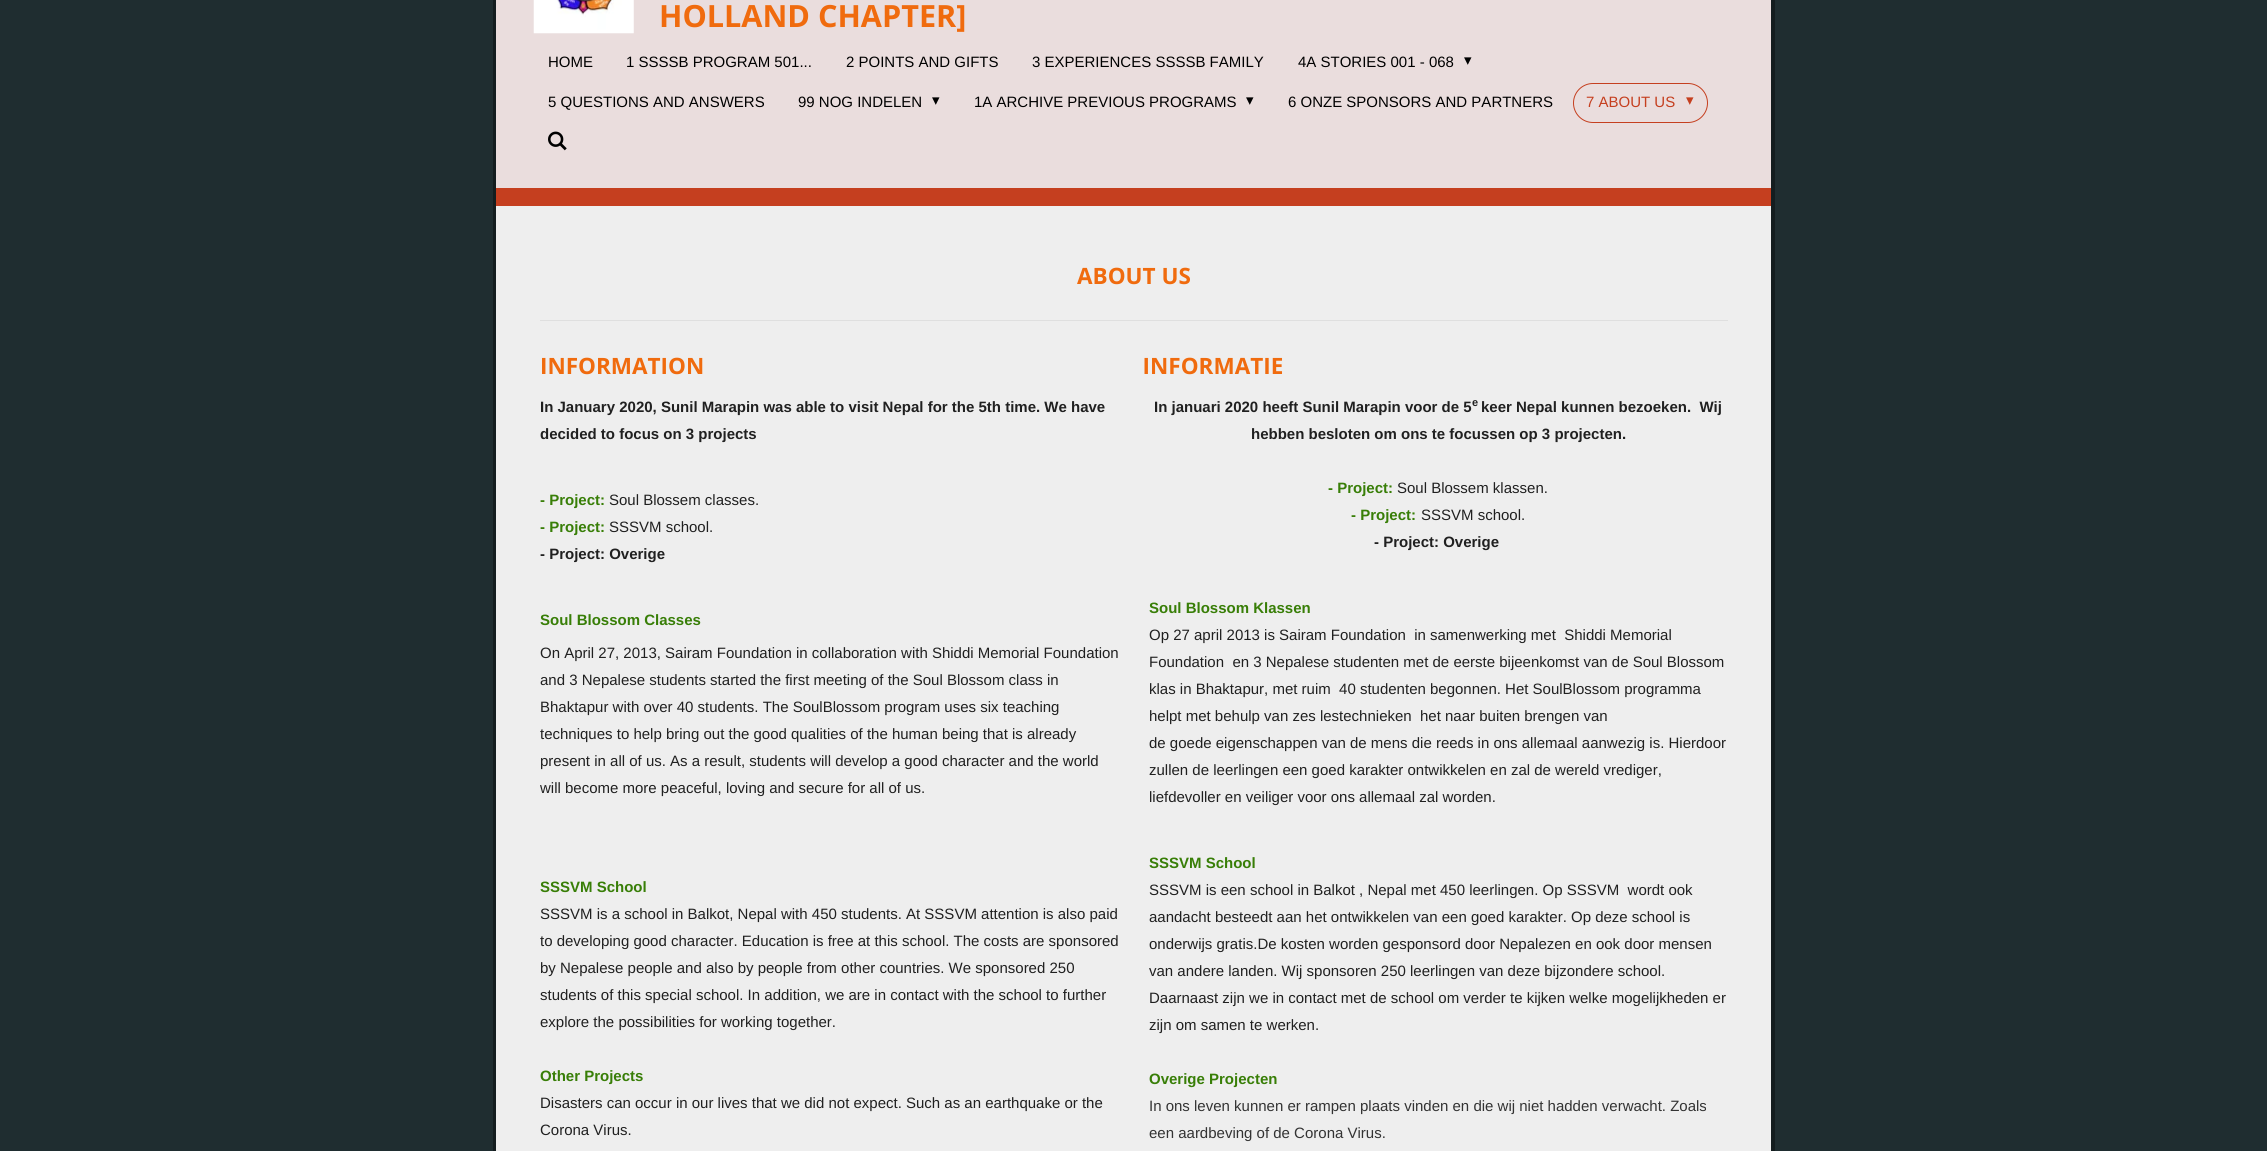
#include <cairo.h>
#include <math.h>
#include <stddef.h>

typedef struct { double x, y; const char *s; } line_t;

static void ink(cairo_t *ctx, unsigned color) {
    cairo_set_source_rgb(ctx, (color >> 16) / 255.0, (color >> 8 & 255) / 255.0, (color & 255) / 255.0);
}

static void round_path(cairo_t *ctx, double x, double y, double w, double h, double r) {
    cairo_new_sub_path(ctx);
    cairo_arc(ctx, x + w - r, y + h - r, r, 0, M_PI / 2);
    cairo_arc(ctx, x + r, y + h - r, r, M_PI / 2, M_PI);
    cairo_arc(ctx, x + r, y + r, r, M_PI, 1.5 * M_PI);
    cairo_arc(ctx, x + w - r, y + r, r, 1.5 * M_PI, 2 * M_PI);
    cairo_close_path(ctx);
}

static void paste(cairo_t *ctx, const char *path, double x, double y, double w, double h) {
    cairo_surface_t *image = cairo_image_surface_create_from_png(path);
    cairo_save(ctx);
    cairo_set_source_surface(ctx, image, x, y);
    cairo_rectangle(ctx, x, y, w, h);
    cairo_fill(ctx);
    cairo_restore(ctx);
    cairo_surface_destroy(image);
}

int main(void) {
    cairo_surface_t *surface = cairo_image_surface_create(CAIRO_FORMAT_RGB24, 2267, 1151);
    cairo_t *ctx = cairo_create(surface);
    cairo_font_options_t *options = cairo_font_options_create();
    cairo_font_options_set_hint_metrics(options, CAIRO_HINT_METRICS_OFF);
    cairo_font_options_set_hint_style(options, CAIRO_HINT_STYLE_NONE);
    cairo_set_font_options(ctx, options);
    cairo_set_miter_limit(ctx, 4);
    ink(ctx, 0x1F2D30);
    cairo_paint(ctx);
    cairo_rectangle(ctx, 495, -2, 1278, 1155);
    ink(ctx, 0x141D1F);
    cairo_set_line_width(ctx, 4);
    cairo_stroke(ctx);
    ink(ctx, 0xEADDDD);
    cairo_rectangle(ctx, 496, 0, 1275, 188);
    cairo_fill(ctx);
    paste(ctx, "media/1.png", 533, 0, 101, 34);
    cairo_select_font_face(ctx, "Open Sans", CAIRO_FONT_SLANT_NORMAL, CAIRO_FONT_WEIGHT_BOLD);
    cairo_set_font_size(ctx, 30.6);
    ink(ctx, 0xF06B0E);
    cairo_move_to(ctx, 659, 27);
    cairo_show_text(ctx, "HOLLAND CHAPTER]");
    cairo_select_font_face(ctx, "Liberation Sans", CAIRO_FONT_SLANT_NORMAL, CAIRO_FONT_WEIGHT_NORMAL);
    cairo_set_font_size(ctx, 15);
    ink(ctx, 0x000000);
    {
        static const line_t items[] = {
            {548, 67, "HOME"},
            {626, 67, "1 SSSSB PROGRAM 501..."},
            {846, 67, "2 POINTS AND GIFTS"},
            {1032, 67, "3 EXPERIENCES SSSSB FAMILY"},
            {1298, 67, "4A STORIES 001 - 068"},
        };
        for (size_t i = 0; i < sizeof items / sizeof *items; i++) {
            cairo_move_to(ctx, items[i].x, items[i].y);
            cairo_show_text(ctx, items[i].s);
        }
    }
    cairo_select_font_face(ctx, "DejaVu Sans", CAIRO_FONT_SLANT_NORMAL, CAIRO_FONT_WEIGHT_NORMAL);
    cairo_move_to(ctx, 1464, 65);
    cairo_show_text(ctx, "▾");
    cairo_select_font_face(ctx, "Liberation Sans", CAIRO_FONT_SLANT_NORMAL, CAIRO_FONT_WEIGHT_NORMAL);
    cairo_move_to(ctx, 548, 107);
    cairo_show_text(ctx, "5 QUESTIONS AND ANSWERS");
    cairo_move_to(ctx, 798, 107);
    cairo_show_text(ctx, "99 NOG INDELEN");
    cairo_select_font_face(ctx, "DejaVu Sans", CAIRO_FONT_SLANT_NORMAL, CAIRO_FONT_WEIGHT_NORMAL);
    cairo_move_to(ctx, 932, 105);
    cairo_show_text(ctx, "▾");
    cairo_select_font_face(ctx, "Liberation Sans", CAIRO_FONT_SLANT_NORMAL, CAIRO_FONT_WEIGHT_NORMAL);
    cairo_move_to(ctx, 974, 107);
    cairo_show_text(ctx, "1A ARCHIVE PREVIOUS PROGRAMS");
    cairo_select_font_face(ctx, "DejaVu Sans", CAIRO_FONT_SLANT_NORMAL, CAIRO_FONT_WEIGHT_NORMAL);
    cairo_move_to(ctx, 1246, 105);
    cairo_show_text(ctx, "▾");
    cairo_select_font_face(ctx, "Liberation Sans", CAIRO_FONT_SLANT_NORMAL, CAIRO_FONT_WEIGHT_NORMAL);
    cairo_move_to(ctx, 1288, 107);
    cairo_show_text(ctx, "6 ONZE SPONSORS AND PARTNERS");
    round_path(ctx, 1573.5, 83.5, 134, 39, 19.5);
    ink(ctx, 0xC53F1F);
    cairo_set_line_width(ctx, 1);
    cairo_stroke(ctx);
    cairo_move_to(ctx, 1586, 107);
    cairo_show_text(ctx, "7 ABOUT US");
    cairo_select_font_face(ctx, "DejaVu Sans", CAIRO_FONT_SLANT_NORMAL, CAIRO_FONT_WEIGHT_NORMAL);
    cairo_move_to(ctx, 1686, 105);
    cairo_show_text(ctx, "▾");
    paste(ctx, "media/2.png", 548, 131, 19, 20);
    cairo_rectangle(ctx, 496, 188, 1275, 18);
    cairo_fill(ctx);
    ink(ctx, 0xEEEEEE);
    cairo_rectangle(ctx, 496, 206, 1275, 945);
    cairo_fill(ctx);
    cairo_select_font_face(ctx, "Open Sans", CAIRO_FONT_SLANT_NORMAL, CAIRO_FONT_WEIGHT_BOLD);
    cairo_set_font_size(ctx, 22.5);
    ink(ctx, 0xF06B0E);
    cairo_move_to(ctx, 1077, 284);
    cairo_show_text(ctx, "ABOUT US");
    ink(ctx, 0xDFDFDF);
    cairo_rectangle(ctx, 540, 320, 1188, 1);
    cairo_fill(ctx);
    ink(ctx, 0xF06B0E);
    cairo_move_to(ctx, 540, 374);
    cairo_show_text(ctx, "INFORMATION                                                                           INFORMATIE");
    cairo_select_font_face(ctx, "Liberation Sans", CAIRO_FONT_SLANT_NORMAL, CAIRO_FONT_WEIGHT_BOLD);
    cairo_set_font_size(ctx, 15);
    ink(ctx, 0x202020);
    cairo_move_to(ctx, 540, 412);
    cairo_show_text(ctx, "In January 2020, Sunil Marapin was able to visit Nepal for the 5th time. We have");
    cairo_move_to(ctx, 540, 439);
    cairo_show_text(ctx, "decided to focus on 3 projects");
    ink(ctx, 0x387E07);
    cairo_move_to(ctx, 540, 505);
    cairo_show_text(ctx, "- Project:");
    cairo_select_font_face(ctx, "Liberation Sans", CAIRO_FONT_SLANT_NORMAL, CAIRO_FONT_WEIGHT_NORMAL);
    ink(ctx, 0x202020);
    cairo_move_to(ctx, 609, 505);
    cairo_show_text(ctx, "Soul Blossem classes.");
    cairo_select_font_face(ctx, "Liberation Sans", CAIRO_FONT_SLANT_NORMAL, CAIRO_FONT_WEIGHT_BOLD);
    ink(ctx, 0x387E07);
    cairo_move_to(ctx, 540, 532);
    cairo_show_text(ctx, "- Project:");
    cairo_select_font_face(ctx, "Liberation Sans", CAIRO_FONT_SLANT_NORMAL, CAIRO_FONT_WEIGHT_NORMAL);
    ink(ctx, 0x202020);
    cairo_move_to(ctx, 609, 532);
    cairo_show_text(ctx, "SSSVM school.");
    cairo_select_font_face(ctx, "Liberation Sans", CAIRO_FONT_SLANT_NORMAL, CAIRO_FONT_WEIGHT_BOLD);
    cairo_move_to(ctx, 540, 559);
    cairo_show_text(ctx, "- Project: Overige");
    ink(ctx, 0x387E07);
    cairo_move_to(ctx, 540, 625);
    cairo_show_text(ctx, "Soul Blossom Classes");
    cairo_select_font_face(ctx, "Liberation Sans", CAIRO_FONT_SLANT_NORMAL, CAIRO_FONT_WEIGHT_NORMAL);
    ink(ctx, 0x202020);
    {
        static const line_t items[] = {
            {540, 658, "On April 27, 2013, Sairam Foundation in collaboration with Shiddi Memorial Foundation"},
            {540, 685, "and 3 Nepalese students started the first meeting of the Soul Blossom class in"},
            {540, 712, "Bhaktapur with over 40 students. The SoulBlossom program uses six teaching"},
            {540, 739, "techniques to help bring out the good qualities of the human being that is already"},
            {540, 766, "present in all of us. As a result, students will develop a good character and the world"},
            {540, 793, "will become more peaceful, loving and secure for all of us."},
        };
        for (size_t i = 0; i < sizeof items / sizeof *items; i++) {
            cairo_move_to(ctx, items[i].x, items[i].y);
            cairo_show_text(ctx, items[i].s);
        }
    }
    cairo_select_font_face(ctx, "Liberation Sans", CAIRO_FONT_SLANT_NORMAL, CAIRO_FONT_WEIGHT_BOLD);
    ink(ctx, 0x387E07);
    cairo_move_to(ctx, 540, 892);
    cairo_show_text(ctx, "SSSVM School");
    cairo_select_font_face(ctx, "Liberation Sans", CAIRO_FONT_SLANT_NORMAL, CAIRO_FONT_WEIGHT_NORMAL);
    ink(ctx, 0x202020);
    {
        static const line_t items[] = {
            {540, 919, "SSSVM is a school in Balkot, Nepal with 450 students. At SSSVM attention is also paid"},
            {540, 946, "to developing good character. Education is free at this school. The costs are sponsored"},
            {540, 973, "by Nepalese people and also by people from other countries. We sponsored 250"},
            {540, 1000, "students of this special school. In addition, we are in contact with the school to further"},
            {540, 1027, "explore the possibilities for working together."},
        };
        for (size_t i = 0; i < sizeof items / sizeof *items; i++) {
            cairo_move_to(ctx, items[i].x, items[i].y);
            cairo_show_text(ctx, items[i].s);
        }
    }
    cairo_select_font_face(ctx, "Liberation Sans", CAIRO_FONT_SLANT_NORMAL, CAIRO_FONT_WEIGHT_BOLD);
    ink(ctx, 0x387E07);
    cairo_move_to(ctx, 540, 1081);
    cairo_show_text(ctx, "Other Projects");
    cairo_select_font_face(ctx, "Liberation Sans", CAIRO_FONT_SLANT_NORMAL, CAIRO_FONT_WEIGHT_NORMAL);
    ink(ctx, 0x202020);
    cairo_move_to(ctx, 540, 1108);
    cairo_show_text(ctx, "Disasters can occur in our lives that we did not expect. Such as an earthquake or the");
    cairo_move_to(ctx, 540, 1135);
    cairo_show_text(ctx, "Corona Virus.");
    cairo_select_font_face(ctx, "Liberation Sans", CAIRO_FONT_SLANT_NORMAL, CAIRO_FONT_WEIGHT_BOLD);
    cairo_move_to(ctx, 1154, 412);
    cairo_show_text(ctx, "In januari 2020 heeft Sunil Marapin voor de 5");
    cairo_set_font_size(ctx, 11);
    cairo_move_to(ctx, 1472, 406);
    cairo_show_text(ctx, "e");
    cairo_set_font_size(ctx, 15);
    cairo_move_to(ctx, 1481, 412);
    cairo_show_text(ctx, "keer Nepal kunnen bezoeken.  Wij");
    cairo_move_to(ctx, 1251, 439);
    cairo_show_text(ctx, "hebben besloten om ons te focussen op 3 projecten.");
    ink(ctx, 0x387E07);
    cairo_move_to(ctx, 1328, 493);
    cairo_show_text(ctx, "- Project:");
    cairo_select_font_face(ctx, "Liberation Sans", CAIRO_FONT_SLANT_NORMAL, CAIRO_FONT_WEIGHT_NORMAL);
    ink(ctx, 0x202020);
    cairo_move_to(ctx, 1397, 493);
    cairo_show_text(ctx, "Soul Blossem klassen.");
    cairo_select_font_face(ctx, "Liberation Sans", CAIRO_FONT_SLANT_NORMAL, CAIRO_FONT_WEIGHT_BOLD);
    ink(ctx, 0x387E07);
    cairo_move_to(ctx, 1351, 520);
    cairo_show_text(ctx, "- Project:");
    cairo_select_font_face(ctx, "Liberation Sans", CAIRO_FONT_SLANT_NORMAL, CAIRO_FONT_WEIGHT_NORMAL);
    ink(ctx, 0x202020);
    cairo_move_to(ctx, 1421, 520);
    cairo_show_text(ctx, "SSSVM school.");
    cairo_select_font_face(ctx, "Liberation Sans", CAIRO_FONT_SLANT_NORMAL, CAIRO_FONT_WEIGHT_BOLD);
    cairo_move_to(ctx, 1374, 547);
    cairo_show_text(ctx, "- Project: Overige");
    ink(ctx, 0x387E07);
    cairo_move_to(ctx, 1149, 613);
    cairo_show_text(ctx, "Soul Blossom Klassen");
    cairo_select_font_face(ctx, "Liberation Sans", CAIRO_FONT_SLANT_NORMAL, CAIRO_FONT_WEIGHT_NORMAL);
    ink(ctx, 0x202020);
    {
        static const line_t items[] = {
            {1149, 640, "Op 27 april 2013 is Sairam Foundation  in samenwerking met  Shiddi Memorial"},
            {1149, 667, "Foundation  en 3 Nepalese studenten met de eerste bijeenkomst van de Soul Blossom"},
            {1149, 694, "klas in Bhaktapur, met ruim  40 studenten begonnen. Het SoulBlossom programma"},
            {1149, 721, "helpt met behulp van zes lestechnieken  het naar buiten brengen van"},
            {1149, 748, "de goede eigenschappen van de mens die reeds in ons allemaal aanwezig is. Hierdoor"},
            {1149, 775, "zullen de leerlingen een goed karakter ontwikkelen en zal de wereld vrediger,"},
            {1149, 802, "liefdevoller en veiliger voor ons allemaal zal worden."},
        };
        for (size_t i = 0; i < sizeof items / sizeof *items; i++) {
            cairo_move_to(ctx, items[i].x, items[i].y);
            cairo_show_text(ctx, items[i].s);
        }
    }
    cairo_select_font_face(ctx, "Liberation Sans", CAIRO_FONT_SLANT_NORMAL, CAIRO_FONT_WEIGHT_BOLD);
    ink(ctx, 0x387E07);
    cairo_move_to(ctx, 1149, 868);
    cairo_show_text(ctx, "SSSVM School");
    cairo_select_font_face(ctx, "Liberation Sans", CAIRO_FONT_SLANT_NORMAL, CAIRO_FONT_WEIGHT_NORMAL);
    ink(ctx, 0x202020);
    {
        static const line_t items[] = {
            {1149, 895, "SSSVM is een school in Balkot , Nepal met 450 leerlingen. Op SSSVM  wordt ook"},
            {1149, 922, "aandacht besteedt aan het ontwikkelen van een goed karakter. Op deze school is"},
            {1149, 949, "onderwijs gratis.De kosten worden gesponsord door Nepalezen en ook door mensen"},
            {1149, 976, "van andere landen. Wij sponsoren 250 leerlingen van deze bijzondere school."},
            {1149, 1003, "Daarnaast zijn we in contact met de school om verder te kijken welke mogelijkheden er"},
            {1149, 1030, "zijn om samen te werken."},
        };
        for (size_t i = 0; i < sizeof items / sizeof *items; i++) {
            cairo_move_to(ctx, items[i].x, items[i].y);
            cairo_show_text(ctx, items[i].s);
        }
    }
    cairo_select_font_face(ctx, "Liberation Sans", CAIRO_FONT_SLANT_NORMAL, CAIRO_FONT_WEIGHT_BOLD);
    ink(ctx, 0x387E07);
    cairo_move_to(ctx, 1149, 1084);
    cairo_show_text(ctx, "Overige Projecten");
    cairo_select_font_face(ctx, "Liberation Sans", CAIRO_FONT_SLANT_NORMAL, CAIRO_FONT_WEIGHT_NORMAL);
    ink(ctx, 0x333333);
    cairo_move_to(ctx, 1149, 1111);
    cairo_show_text(ctx, "In ons leven kunnen er rampen plaats vinden en die wij niet hadden verwacht. Zoals");
    cairo_move_to(ctx, 1149, 1138);
    cairo_show_text(ctx, "een aardbeving of de Corona Virus.");
    cairo_surface_write_to_png(surface, "image.png");
    cairo_font_options_destroy(options);
    cairo_destroy(ctx);
    cairo_surface_destroy(surface);
    return 0;
}
